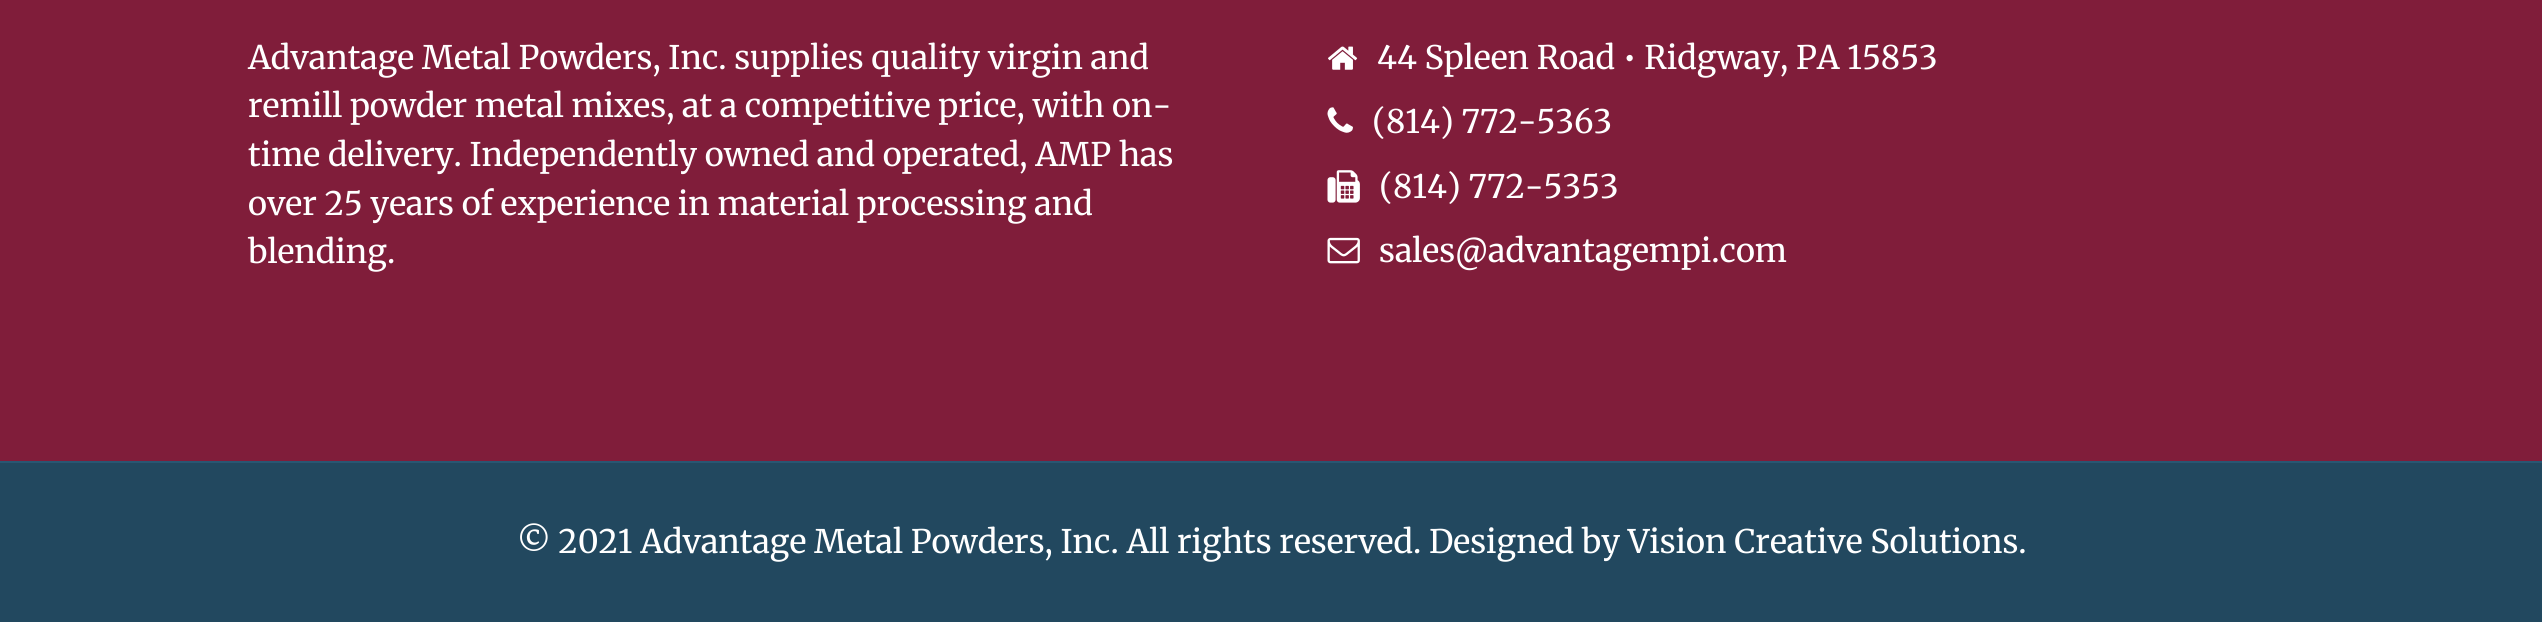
#include <cairo.h>
#include <math.h>
#include <stddef.h>

typedef struct { double x, y; const char *s; } line_t;

static void ink(cairo_t *ctx, unsigned color) {
    cairo_set_source_rgb(ctx, (color >> 16) / 255.0, (color >> 8 & 255) / 255.0, (color & 255) / 255.0);
}

static void paste(cairo_t *ctx, const char *path, double x, double y, double w, double h) {
    cairo_surface_t *image = cairo_image_surface_create_from_png(path);
    cairo_save(ctx);
    cairo_set_source_surface(ctx, image, x, y);
    cairo_rectangle(ctx, x, y, w, h);
    cairo_fill(ctx);
    cairo_restore(ctx);
    cairo_surface_destroy(image);
}

int main(void) {
    cairo_surface_t *surface = cairo_image_surface_create(CAIRO_FORMAT_RGB24, 2542, 622);
    cairo_t *ctx = cairo_create(surface);
    cairo_font_options_t *options = cairo_font_options_create();
    cairo_font_options_set_hint_metrics(options, CAIRO_HINT_METRICS_OFF);
    cairo_font_options_set_hint_style(options, CAIRO_HINT_STYLE_NONE);
    cairo_set_font_options(ctx, options);
    cairo_set_miter_limit(ctx, 4);
    ink(ctx, 0x801D3A);
    cairo_paint(ctx);
    cairo_select_font_face(ctx, "Merriweather", CAIRO_FONT_SLANT_NORMAL, CAIRO_FONT_WEIGHT_NORMAL);
    cairo_set_font_size(ctx, 32.4);
    ink(ctx, 0xFFFFFF);
    {
        static const line_t items[] = {
            {248, 69, "Advantage Metal Powders, Inc. supplies quality virgin and"},
            {248, 117, "remill powder metal mixes, at a competitive price, with on-"},
            {248, 166, "time delivery. Independently owned and operated, AMP has"},
            {248, 215, "over 25 years of experience in material processing and"},
            {248, 263, "blending."},
        };
        for (size_t i = 0; i < sizeof items / sizeof *items; i++) {
            cairo_move_to(ctx, items[i].x, items[i].y);
            cairo_show_text(ctx, items[i].s);
        }
    }
    paste(ctx, "media/1.png", 1328, 46, 30, 24);
    cairo_move_to(ctx, 1377, 69);
    cairo_show_text(ctx, "44 Spleen Road • Ridgway, PA 15853");
    paste(ctx, "media/2.png", 1327, 107, 26, 26);
    cairo_move_to(ctx, 1372, 133);
    cairo_show_text(ctx, "(814) 772-5363");
    paste(ctx, "media/3.png", 1327, 170, 33, 33);
    cairo_move_to(ctx, 1379, 198);
    cairo_show_text(ctx, "(814) 772-5353");
    paste(ctx, "media/4.png", 1327, 237, 33, 27);
    cairo_move_to(ctx, 1379, 262);
    cairo_show_text(ctx, "sales@advantagempi.com");
    ink(ctx, 0x22485F);
    cairo_rectangle(ctx, 0, 463, 2542, 159);
    cairo_fill(ctx);
    ink(ctx, 0x295672);
    cairo_rectangle(ctx, 0, 461, 2542, 2);
    cairo_fill(ctx);
    ink(ctx, 0xFFFFFF);
    cairo_move_to(ctx, 517, 553);
    cairo_show_text(ctx, "© 2021 Advantage Metal Powders, Inc. All rights reserved. Designed by Vision Creative Solutions.");
    cairo_surface_write_to_png(surface, "image.png");
    cairo_font_options_destroy(options);
    cairo_destroy(ctx);
    cairo_surface_destroy(surface);
    return 0;
}
